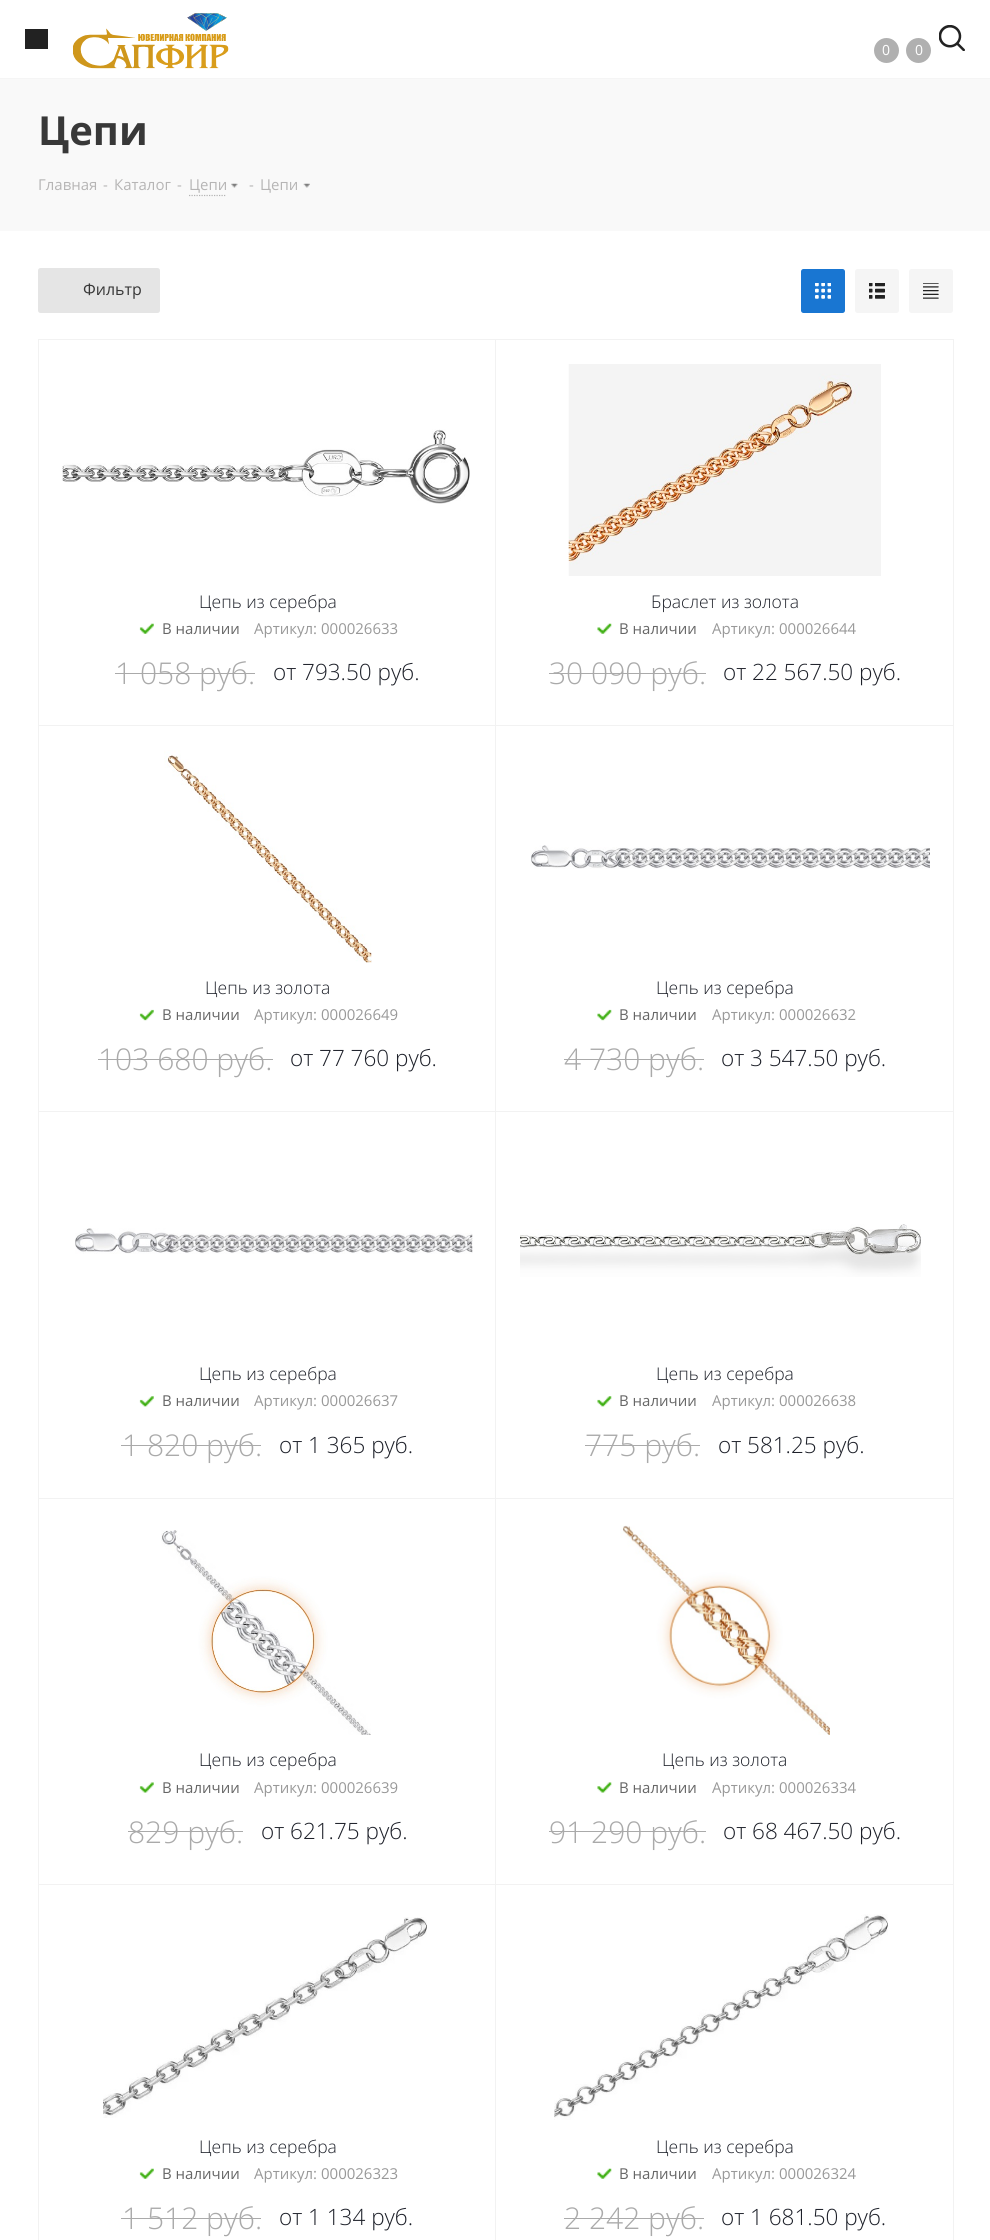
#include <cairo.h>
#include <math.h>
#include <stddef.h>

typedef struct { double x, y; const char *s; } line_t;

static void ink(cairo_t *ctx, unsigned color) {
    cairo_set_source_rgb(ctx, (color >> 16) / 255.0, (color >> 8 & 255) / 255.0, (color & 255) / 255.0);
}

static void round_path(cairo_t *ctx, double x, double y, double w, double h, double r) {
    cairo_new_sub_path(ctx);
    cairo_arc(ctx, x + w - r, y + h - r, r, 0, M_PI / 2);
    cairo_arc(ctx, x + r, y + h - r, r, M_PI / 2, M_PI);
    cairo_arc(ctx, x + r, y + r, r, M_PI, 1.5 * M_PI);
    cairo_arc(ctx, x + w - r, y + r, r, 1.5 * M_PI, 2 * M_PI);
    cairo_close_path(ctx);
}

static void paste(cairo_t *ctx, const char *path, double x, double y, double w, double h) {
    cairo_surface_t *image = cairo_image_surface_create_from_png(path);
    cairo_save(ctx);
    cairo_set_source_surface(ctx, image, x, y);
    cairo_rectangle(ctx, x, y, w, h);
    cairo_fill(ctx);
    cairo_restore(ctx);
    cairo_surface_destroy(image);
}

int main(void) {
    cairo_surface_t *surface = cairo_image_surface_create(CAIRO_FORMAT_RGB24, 990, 2240);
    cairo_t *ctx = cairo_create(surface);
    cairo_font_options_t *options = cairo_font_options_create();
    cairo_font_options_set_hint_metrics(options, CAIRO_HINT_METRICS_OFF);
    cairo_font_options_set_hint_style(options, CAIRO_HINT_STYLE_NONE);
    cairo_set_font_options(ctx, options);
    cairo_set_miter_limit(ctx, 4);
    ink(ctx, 0xFFFFFF);
    cairo_paint(ctx);
    ink(ctx, 0xF5F5F5);
    cairo_rectangle(ctx, 0, 78, 990, 1);
    cairo_fill(ctx);
    ink(ctx, 0x222222);
    cairo_rectangle(ctx, 25, 29, 23, 20);
    cairo_fill(ctx);
    paste(ctx, "media/1.png", 73, 13, 156, 56);
    ink(ctx, 0xB0B0B0);
    cairo_arc(ctx, 886.5, 50.5, 12.5, 0, 2 * M_PI);
    cairo_fill(ctx);
    cairo_select_font_face(ctx, "Open Sans", CAIRO_FONT_SLANT_NORMAL, CAIRO_FONT_WEIGHT_NORMAL);
    cairo_set_font_size(ctx, 14);
    ink(ctx, 0xFFFFFF);
    cairo_move_to(ctx, 882, 55);
    cairo_show_text(ctx, "0");
    ink(ctx, 0xB0B0B0);
    cairo_new_path(ctx);
    cairo_arc(ctx, 918.5, 50.5, 12.5, 0, 2 * M_PI);
    cairo_fill(ctx);
    ink(ctx, 0xFFFFFF);
    cairo_move_to(ctx, 915, 55);
    cairo_show_text(ctx, "0");
    ink(ctx, 0x222222);
    cairo_rectangle(ctx, 939, 25, 26, 26);
    cairo_fill(ctx);
    paste(ctx, "media/2.png", 939, 25, 26, 26);
    ink(ctx, 0xF9F9F9);
    cairo_rectangle(ctx, 0, 79, 990, 152);
    cairo_fill(ctx);
    cairo_select_font_face(ctx, "Open Sans", CAIRO_FONT_SLANT_NORMAL, CAIRO_FONT_WEIGHT_BOLD);
    cairo_set_font_size(ctx, 40);
    ink(ctx, 0x383838);
    cairo_move_to(ctx, 38, 145);
    cairo_show_text(ctx, "Цепи");
    cairo_select_font_face(ctx, "Open Sans", CAIRO_FONT_SLANT_NORMAL, CAIRO_FONT_WEIGHT_NORMAL);
    cairo_set_font_size(ctx, 15);
    ink(ctx, 0xB6B5B5);
    {
        static const line_t items[] = {
            {38, 190, "Главная"},
            {103, 190, "-"},
            {114, 190, "Каталог"},
            {177, 190, "-"},
            {189, 190, "Цепи"},
        };
        for (size_t i = 0; i < sizeof items / sizeof *items; i++) {
            cairo_move_to(ctx, items[i].x, items[i].y);
            cairo_show_text(ctx, items[i].s);
        }
    }
    cairo_new_path(ctx);
    cairo_move_to(ctx, 189, 195.5);
    cairo_line_to(ctx, 226, 195.5);
    ink(ctx, 0xB4B4B4);
    cairo_set_line_width(ctx, 1.2);
    cairo_set_dash(ctx, (double[]){1.25, 1.25}, 2, 0);
    cairo_stroke(ctx);
    paste(ctx, "media/3.png", 231, 183, 7, 5);
    ink(ctx, 0xB6B5B5);
    cairo_move_to(ctx, 249, 190);
    cairo_show_text(ctx, "-");
    cairo_move_to(ctx, 260, 190);
    cairo_show_text(ctx, "Цепи");
    paste(ctx, "media/4.png", 303, 183, 7, 5);
    ink(ctx, 0xE5E5E5);
    round_path(ctx, 38, 268, 122, 45, 2.5);
    cairo_fill(ctx);
    cairo_set_font_size(ctx, 16);
    ink(ctx, 0x383838);
    cairo_move_to(ctx, 83, 295);
    cairo_show_text(ctx, "Фильтр");
    ink(ctx, 0x1976D2);
    round_path(ctx, 801, 269, 44, 44, 2.5);
    cairo_fill(ctx);
    paste(ctx, "media/5.png", 815, 283, 16, 16);
    ink(ctx, 0xF5F5F5);
    round_path(ctx, 855, 269, 44, 44, 2.5);
    cairo_fill(ctx);
    paste(ctx, "media/6.png", 869, 283, 16, 16);
    round_path(ctx, 909, 269, 44, 44, 2.5);
    cairo_fill(ctx);
    paste(ctx, "media/7.png", 923, 283, 16, 16);
    cairo_rectangle(ctx, 38.5, 339.5, 457, 386);
    ink(ctx, 0xF2F2F2);
    cairo_set_line_width(ctx, 1);
    cairo_set_dash(ctx, NULL, 0, 0);
    cairo_stroke(ctx);
    paste(ctx, "media/8.png", 62, 429, 408, 75);
    cairo_select_font_face(ctx, "Open Sans Light", CAIRO_FONT_SLANT_NORMAL, CAIRO_FONT_WEIGHT_NORMAL);
    cairo_set_font_size(ctx, 17.5);
    ink(ctx, 0x1D2029);
    cairo_move_to(ctx, 199, 608);
    cairo_show_text(ctx, "Цепь из серебра");
    paste(ctx, "media/9.png", 139, 623, 15, 11);
    cairo_select_font_face(ctx, "Open Sans", CAIRO_FONT_SLANT_NORMAL, CAIRO_FONT_WEIGHT_NORMAL);
    cairo_set_font_size(ctx, 15);
    ink(ctx, 0x666666);
    cairo_move_to(ctx, 162, 634);
    cairo_show_text(ctx, "В наличии");
    ink(ctx, 0x999999);
    cairo_move_to(ctx, 254, 634);
    cairo_show_text(ctx, "Артикул: 000026633");
    cairo_select_font_face(ctx, "Open Sans Light", CAIRO_FONT_SLANT_NORMAL, CAIRO_FONT_WEIGHT_NORMAL);
    cairo_set_font_size(ctx, 30);
    ink(ctx, 0xAAAAAA);
    cairo_move_to(ctx, 115, 684);
    cairo_show_text(ctx, "1 058 руб.");
    cairo_rectangle(ctx, 115, 673, 140, 1);
    cairo_fill(ctx);
    cairo_set_font_size(ctx, 22.5);
    ink(ctx, 0x1D2029);
    cairo_move_to(ctx, 273, 680);
    cairo_show_text(ctx, "от 793.50 руб.");
    cairo_rectangle(ctx, 495.5, 339.5, 458, 386);
    ink(ctx, 0xF2F2F2);
    cairo_stroke(ctx);
    paste(ctx, "media/10.png", 568, 364, 313, 212);
    cairo_set_font_size(ctx, 17.5);
    ink(ctx, 0x1D2029);
    cairo_move_to(ctx, 651, 608);
    cairo_show_text(ctx, "Браслет из золота");
    paste(ctx, "media/11.png", 597, 623, 15, 11);
    cairo_select_font_face(ctx, "Open Sans", CAIRO_FONT_SLANT_NORMAL, CAIRO_FONT_WEIGHT_NORMAL);
    cairo_set_font_size(ctx, 15);
    ink(ctx, 0x666666);
    cairo_move_to(ctx, 619, 634);
    cairo_show_text(ctx, "В наличии");
    ink(ctx, 0x999999);
    cairo_move_to(ctx, 712, 634);
    cairo_show_text(ctx, "Артикул: 000026644");
    cairo_select_font_face(ctx, "Open Sans Light", CAIRO_FONT_SLANT_NORMAL, CAIRO_FONT_WEIGHT_NORMAL);
    cairo_set_font_size(ctx, 30);
    ink(ctx, 0xAAAAAA);
    cairo_move_to(ctx, 549, 684);
    cairo_show_text(ctx, "30 090 руб.");
    cairo_rectangle(ctx, 549, 673, 157, 1);
    cairo_fill(ctx);
    cairo_set_font_size(ctx, 22.5);
    ink(ctx, 0x1D2029);
    cairo_move_to(ctx, 723, 680);
    cairo_show_text(ctx, "от 22 567.50 руб.");
    cairo_rectangle(ctx, 38.5, 725.5, 457, 387);
    ink(ctx, 0xF2F2F2);
    cairo_stroke(ctx);
    paste(ctx, "media/12.png", 164, 750, 208, 213);
    cairo_set_font_size(ctx, 17.5);
    ink(ctx, 0x1D2029);
    cairo_move_to(ctx, 205, 994);
    cairo_show_text(ctx, "Цепь из золота");
    paste(ctx, "media/13.png", 139, 1009, 15, 12);
    cairo_select_font_face(ctx, "Open Sans", CAIRO_FONT_SLANT_NORMAL, CAIRO_FONT_WEIGHT_NORMAL);
    cairo_set_font_size(ctx, 15);
    ink(ctx, 0x666666);
    cairo_move_to(ctx, 162, 1020);
    cairo_show_text(ctx, "В наличии");
    ink(ctx, 0x999999);
    cairo_move_to(ctx, 254, 1020);
    cairo_show_text(ctx, "Артикул: 000026649");
    cairo_select_font_face(ctx, "Open Sans Light", CAIRO_FONT_SLANT_NORMAL, CAIRO_FONT_WEIGHT_NORMAL);
    cairo_set_font_size(ctx, 30);
    ink(ctx, 0xAAAAAA);
    cairo_move_to(ctx, 98, 1070);
    cairo_show_text(ctx, "103 680 руб.");
    cairo_rectangle(ctx, 98, 1059, 175, 1);
    cairo_fill(ctx);
    cairo_set_font_size(ctx, 22.5);
    ink(ctx, 0x1D2029);
    cairo_move_to(ctx, 290, 1066);
    cairo_show_text(ctx, "от 77 760 руб.");
    cairo_rectangle(ctx, 495.5, 725.5, 458, 387);
    ink(ctx, 0xF2F2F2);
    cairo_stroke(ctx);
    paste(ctx, "media/14.png", 530, 845, 400, 24);
    cairo_set_font_size(ctx, 17.5);
    ink(ctx, 0x1D2029);
    cairo_move_to(ctx, 656, 994);
    cairo_show_text(ctx, "Цепь из серебра");
    paste(ctx, "media/15.png", 597, 1009, 15, 12);
    cairo_select_font_face(ctx, "Open Sans", CAIRO_FONT_SLANT_NORMAL, CAIRO_FONT_WEIGHT_NORMAL);
    cairo_set_font_size(ctx, 15);
    ink(ctx, 0x666666);
    cairo_move_to(ctx, 619, 1020);
    cairo_show_text(ctx, "В наличии");
    ink(ctx, 0x999999);
    cairo_move_to(ctx, 712, 1020);
    cairo_show_text(ctx, "Артикул: 000026632");
    cairo_select_font_face(ctx, "Open Sans Light", CAIRO_FONT_SLANT_NORMAL, CAIRO_FONT_WEIGHT_NORMAL);
    cairo_set_font_size(ctx, 30);
    ink(ctx, 0xAAAAAA);
    cairo_move_to(ctx, 564, 1070);
    cairo_show_text(ctx, "4 730 руб.");
    cairo_rectangle(ctx, 564, 1059, 140, 1);
    cairo_fill(ctx);
    cairo_set_font_size(ctx, 22.5);
    ink(ctx, 0x1D2029);
    cairo_move_to(ctx, 721, 1066);
    cairo_show_text(ctx, "от 3 547.50 руб.");
    ink(ctx, 0xFFFFFF);
    cairo_rectangle(ctx, 39, 1112, 456, 1);
    cairo_fill(ctx);
    cairo_rectangle(ctx, 38.5, 1111.5, 457, 387);
    ink(ctx, 0xF2F2F2);
    cairo_stroke(ctx);
    paste(ctx, "media/16.png", 75, 1228, 398, 26);
    cairo_set_font_size(ctx, 17.5);
    ink(ctx, 0x1D2029);
    cairo_move_to(ctx, 199, 1380);
    cairo_show_text(ctx, "Цепь из серебра");
    paste(ctx, "media/17.png", 139, 1396, 15, 11);
    cairo_select_font_face(ctx, "Open Sans", CAIRO_FONT_SLANT_NORMAL, CAIRO_FONT_WEIGHT_NORMAL);
    cairo_set_font_size(ctx, 15);
    ink(ctx, 0x666666);
    cairo_move_to(ctx, 162, 1406);
    cairo_show_text(ctx, "В наличии");
    ink(ctx, 0x999999);
    cairo_move_to(ctx, 254, 1406);
    cairo_show_text(ctx, "Артикул: 000026637");
    cairo_select_font_face(ctx, "Open Sans Light", CAIRO_FONT_SLANT_NORMAL, CAIRO_FONT_WEIGHT_NORMAL);
    cairo_set_font_size(ctx, 30);
    ink(ctx, 0xAAAAAA);
    cairo_move_to(ctx, 122, 1456);
    cairo_show_text(ctx, "1 820 руб.");
    cairo_rectangle(ctx, 121, 1445, 140, 1);
    cairo_fill(ctx);
    cairo_set_font_size(ctx, 22.5);
    ink(ctx, 0x1D2029);
    cairo_move_to(ctx, 279, 1453);
    cairo_show_text(ctx, "от 1 365 руб.");
    ink(ctx, 0xFFFFFF);
    cairo_rectangle(ctx, 496, 1112, 457, 1);
    cairo_fill(ctx);
    cairo_rectangle(ctx, 495.5, 1111.5, 458, 387);
    ink(ctx, 0xF2F2F2);
    cairo_stroke(ctx);
    paste(ctx, "media/18.png", 520, 1224, 401, 53);
    cairo_set_font_size(ctx, 17.5);
    ink(ctx, 0x1D2029);
    cairo_move_to(ctx, 656, 1380);
    cairo_show_text(ctx, "Цепь из серебра");
    paste(ctx, "media/19.png", 597, 1396, 15, 11);
    cairo_select_font_face(ctx, "Open Sans", CAIRO_FONT_SLANT_NORMAL, CAIRO_FONT_WEIGHT_NORMAL);
    cairo_set_font_size(ctx, 15);
    ink(ctx, 0x666666);
    cairo_move_to(ctx, 619, 1406);
    cairo_show_text(ctx, "В наличии");
    ink(ctx, 0x999999);
    cairo_move_to(ctx, 712, 1406);
    cairo_show_text(ctx, "Артикул: 000026638");
    cairo_select_font_face(ctx, "Open Sans Light", CAIRO_FONT_SLANT_NORMAL, CAIRO_FONT_WEIGHT_NORMAL);
    cairo_set_font_size(ctx, 30);
    ink(ctx, 0xAAAAAA);
    cairo_move_to(ctx, 585, 1456);
    cairo_show_text(ctx, "775 руб.");
    cairo_rectangle(ctx, 585, 1445, 115, 1);
    cairo_fill(ctx);
    cairo_set_font_size(ctx, 22.5);
    ink(ctx, 0x1D2029);
    cairo_move_to(ctx, 718, 1453);
    cairo_show_text(ctx, "от 581.25 руб.");
    cairo_rectangle(ctx, 38.5, 1498.5, 457, 386);
    ink(ctx, 0xF2F2F2);
    cairo_stroke(ctx);
    paste(ctx, "media/20.png", 161, 1530, 210, 205);
    cairo_set_font_size(ctx, 17.5);
    ink(ctx, 0x1D2029);
    cairo_move_to(ctx, 199, 1766);
    cairo_show_text(ctx, "Цепь из серебра");
    paste(ctx, "media/21.png", 139, 1782, 15, 11);
    cairo_select_font_face(ctx, "Open Sans", CAIRO_FONT_SLANT_NORMAL, CAIRO_FONT_WEIGHT_NORMAL);
    cairo_set_font_size(ctx, 15);
    ink(ctx, 0x666666);
    cairo_move_to(ctx, 162, 1793);
    cairo_show_text(ctx, "В наличии");
    ink(ctx, 0x999999);
    cairo_move_to(ctx, 254, 1793);
    cairo_show_text(ctx, "Артикул: 000026639");
    cairo_select_font_face(ctx, "Open Sans Light", CAIRO_FONT_SLANT_NORMAL, CAIRO_FONT_WEIGHT_NORMAL);
    cairo_set_font_size(ctx, 30);
    ink(ctx, 0xAAAAAA);
    cairo_move_to(ctx, 128, 1843);
    cairo_show_text(ctx, "829 руб.");
    cairo_rectangle(ctx, 128, 1831, 115, 1);
    cairo_fill(ctx);
    cairo_set_font_size(ctx, 22.5);
    ink(ctx, 0x1D2029);
    cairo_move_to(ctx, 261, 1839);
    cairo_show_text(ctx, "от 621.75 руб.");
    cairo_rectangle(ctx, 495.5, 1498.5, 458, 386);
    ink(ctx, 0xF2F2F2);
    cairo_stroke(ctx);
    paste(ctx, "media/22.png", 620, 1525, 210, 210);
    cairo_set_font_size(ctx, 17.5);
    ink(ctx, 0x1D2029);
    cairo_move_to(ctx, 662, 1766);
    cairo_show_text(ctx, "Цепь из золота");
    paste(ctx, "media/23.png", 597, 1782, 15, 11);
    cairo_select_font_face(ctx, "Open Sans", CAIRO_FONT_SLANT_NORMAL, CAIRO_FONT_WEIGHT_NORMAL);
    cairo_set_font_size(ctx, 15);
    ink(ctx, 0x666666);
    cairo_move_to(ctx, 619, 1793);
    cairo_show_text(ctx, "В наличии");
    ink(ctx, 0x999999);
    cairo_move_to(ctx, 712, 1793);
    cairo_show_text(ctx, "Артикул: 000026334");
    cairo_select_font_face(ctx, "Open Sans Light", CAIRO_FONT_SLANT_NORMAL, CAIRO_FONT_WEIGHT_NORMAL);
    cairo_set_font_size(ctx, 30);
    ink(ctx, 0xAAAAAA);
    cairo_move_to(ctx, 549, 1843);
    cairo_show_text(ctx, "91 290 руб.");
    cairo_rectangle(ctx, 549, 1831, 157, 1);
    cairo_fill(ctx);
    cairo_set_font_size(ctx, 22.5);
    ink(ctx, 0x1D2029);
    cairo_move_to(ctx, 723, 1839);
    cairo_show_text(ctx, "от 68 467.50 руб.");
    cairo_rectangle(ctx, 38.5, 1884.5, 457, 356);
    ink(ctx, 0xF2F2F2);
    cairo_stroke(ctx);
    paste(ctx, "media/24.png", 103, 1917, 324, 201);
    cairo_set_font_size(ctx, 17.5);
    ink(ctx, 0x1D2029);
    cairo_move_to(ctx, 199, 2153);
    cairo_show_text(ctx, "Цепь из серебра");
    paste(ctx, "media/9.png", 139, 2168, 15, 11);
    cairo_select_font_face(ctx, "Open Sans", CAIRO_FONT_SLANT_NORMAL, CAIRO_FONT_WEIGHT_NORMAL);
    cairo_set_font_size(ctx, 15);
    ink(ctx, 0x666666);
    cairo_move_to(ctx, 162, 2179);
    cairo_show_text(ctx, "В наличии");
    ink(ctx, 0x999999);
    cairo_move_to(ctx, 254, 2179);
    cairo_show_text(ctx, "Артикул: 000026323");
    cairo_select_font_face(ctx, "Open Sans Light", CAIRO_FONT_SLANT_NORMAL, CAIRO_FONT_WEIGHT_NORMAL);
    cairo_set_font_size(ctx, 30);
    ink(ctx, 0xAAAAAA);
    cairo_move_to(ctx, 122, 2229);
    cairo_show_text(ctx, "1 512 руб.");
    cairo_rectangle(ctx, 121, 2218, 140, 1);
    cairo_fill(ctx);
    cairo_set_font_size(ctx, 22.5);
    ink(ctx, 0x1D2029);
    cairo_move_to(ctx, 279, 2225);
    cairo_show_text(ctx, "от 1 134 руб.");
    cairo_rectangle(ctx, 495.5, 1884.5, 458, 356);
    ink(ctx, 0xF2F2F2);
    cairo_stroke(ctx);
    paste(ctx, "media/25.png", 554, 1914, 334, 206);
    cairo_set_font_size(ctx, 17.5);
    ink(ctx, 0x1D2029);
    cairo_move_to(ctx, 656, 2153);
    cairo_show_text(ctx, "Цепь из серебра");
    paste(ctx, "media/11.png", 597, 2168, 15, 11);
    cairo_select_font_face(ctx, "Open Sans", CAIRO_FONT_SLANT_NORMAL, CAIRO_FONT_WEIGHT_NORMAL);
    cairo_set_font_size(ctx, 15);
    ink(ctx, 0x666666);
    cairo_move_to(ctx, 619, 2179);
    cairo_show_text(ctx, "В наличии");
    ink(ctx, 0x999999);
    cairo_move_to(ctx, 712, 2179);
    cairo_show_text(ctx, "Артикул: 000026324");
    cairo_select_font_face(ctx, "Open Sans Light", CAIRO_FONT_SLANT_NORMAL, CAIRO_FONT_WEIGHT_NORMAL);
    cairo_set_font_size(ctx, 30);
    ink(ctx, 0xAAAAAA);
    cairo_move_to(ctx, 564, 2229);
    cairo_show_text(ctx, "2 242 руб.");
    cairo_rectangle(ctx, 564, 2218, 140, 1);
    cairo_fill(ctx);
    cairo_set_font_size(ctx, 22.5);
    ink(ctx, 0x1D2029);
    cairo_move_to(ctx, 721, 2225);
    cairo_show_text(ctx, "от 1 681.50 руб.");
    cairo_surface_write_to_png(surface, "image.png");
    cairo_font_options_destroy(options);
    cairo_destroy(ctx);
    cairo_surface_destroy(surface);
    return 0;
}
